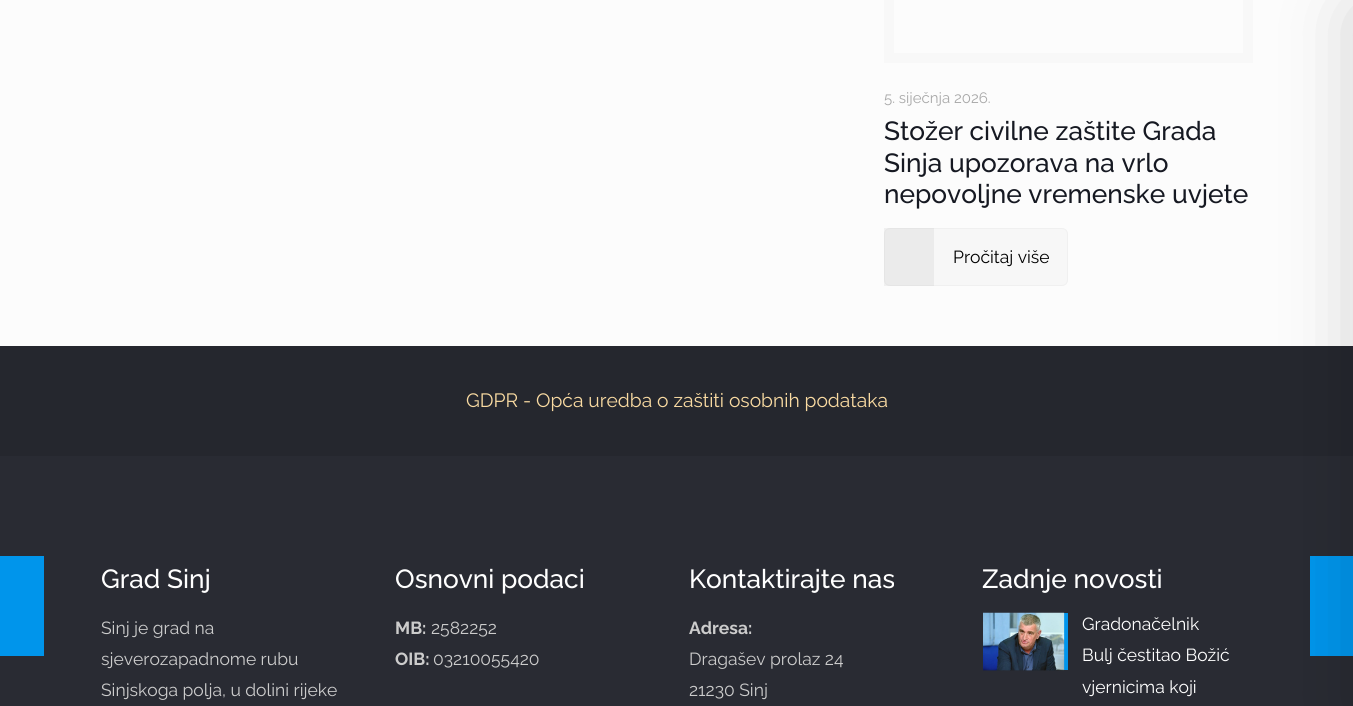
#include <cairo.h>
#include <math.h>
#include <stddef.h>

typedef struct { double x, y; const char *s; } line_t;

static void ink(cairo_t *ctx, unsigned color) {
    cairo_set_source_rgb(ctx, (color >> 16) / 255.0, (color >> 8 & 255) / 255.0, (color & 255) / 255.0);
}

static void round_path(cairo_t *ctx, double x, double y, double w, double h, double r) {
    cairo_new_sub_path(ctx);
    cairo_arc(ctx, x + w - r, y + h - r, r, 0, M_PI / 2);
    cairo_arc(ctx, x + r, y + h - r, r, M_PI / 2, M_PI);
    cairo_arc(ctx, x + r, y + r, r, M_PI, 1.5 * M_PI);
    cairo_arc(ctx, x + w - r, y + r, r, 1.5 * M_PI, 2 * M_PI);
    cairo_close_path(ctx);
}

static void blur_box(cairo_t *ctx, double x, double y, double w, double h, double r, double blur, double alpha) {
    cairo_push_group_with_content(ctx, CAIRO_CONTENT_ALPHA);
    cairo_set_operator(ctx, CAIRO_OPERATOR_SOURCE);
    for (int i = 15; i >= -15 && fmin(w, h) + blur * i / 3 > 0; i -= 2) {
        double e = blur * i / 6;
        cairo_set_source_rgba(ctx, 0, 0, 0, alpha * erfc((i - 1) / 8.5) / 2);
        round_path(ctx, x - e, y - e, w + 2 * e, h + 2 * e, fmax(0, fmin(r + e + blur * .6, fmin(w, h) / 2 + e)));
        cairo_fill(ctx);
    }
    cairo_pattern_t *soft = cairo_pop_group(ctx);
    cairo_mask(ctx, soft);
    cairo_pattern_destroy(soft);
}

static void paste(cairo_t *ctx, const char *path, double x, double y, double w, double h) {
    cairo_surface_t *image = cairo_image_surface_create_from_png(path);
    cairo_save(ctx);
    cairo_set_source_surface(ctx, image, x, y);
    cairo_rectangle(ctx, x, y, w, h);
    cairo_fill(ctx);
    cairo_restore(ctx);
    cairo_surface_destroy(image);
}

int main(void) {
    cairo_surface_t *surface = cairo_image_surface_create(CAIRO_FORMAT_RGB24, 1353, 706);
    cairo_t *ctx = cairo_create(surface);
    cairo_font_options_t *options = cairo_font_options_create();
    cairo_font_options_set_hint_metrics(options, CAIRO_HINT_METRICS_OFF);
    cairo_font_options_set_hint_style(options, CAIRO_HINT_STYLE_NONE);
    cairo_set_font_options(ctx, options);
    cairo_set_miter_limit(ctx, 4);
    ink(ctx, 0xFCFCFC);
    cairo_paint(ctx);
    ink(ctx, 0x292B33);
    cairo_rectangle(ctx, 0, 456, 1353, 250);
    cairo_fill(ctx);
    ink(ctx, 0x0095EB);
    cairo_rectangle(ctx, 0, 556, 44, 100);
    cairo_fill(ctx);
    cairo_rectangle(ctx, 889, -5, 359, 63);
    ink(ctx, 0xF8F8F8);
    cairo_set_line_width(ctx, 10);
    cairo_stroke(ctx);
    cairo_select_font_face(ctx, "Raleway", CAIRO_FONT_SLANT_NORMAL, CAIRO_FONT_WEIGHT_NORMAL);
    cairo_set_font_size(ctx, 15);
    ink(ctx, 0xA8A8A8);
    cairo_move_to(ctx, 884, 103);
    cairo_show_text(ctx, "5. siječnja 2026.");
    cairo_select_font_face(ctx, "Raleway Medium", CAIRO_FONT_SLANT_NORMAL, CAIRO_FONT_WEIGHT_NORMAL);
    cairo_set_font_size(ctx, 26.25);
    ink(ctx, 0x161922);
    {
        static const line_t items[] = {
            {884, 140, "Stožer civilne zaštite Grada"},
            {884, 172, "Sinja upozorava na vrlo"},
            {884, 203, "nepovoljne vremenske uvjete"},
        };
        for (size_t i = 0; i < sizeof items / sizeof *items; i++) {
            cairo_move_to(ctx, items[i].x, items[i].y);
            cairo_show_text(ctx, items[i].s);
        }
    }
    ink(ctx, 0xF7F7F7);
    round_path(ctx, 884.5, 228.5, 183, 57, 5.5);
    cairo_fill_preserve(ctx);
    ink(ctx, 0xF0F0F0);
    cairo_set_line_width(ctx, 1);
    cairo_stroke(ctx);
    cairo_set_source_rgba(ctx, 0, 0, 0, 0.05);
    cairo_rectangle(ctx, 884, 228, 50, 58);
    cairo_fill(ctx);
    cairo_select_font_face(ctx, "Raleway", CAIRO_FONT_SLANT_NORMAL, CAIRO_FONT_WEIGHT_NORMAL);
    cairo_set_font_size(ctx, 17.5);
    ink(ctx, 0x000000);
    cairo_move_to(ctx, 953, 263);
    cairo_show_text(ctx, "Pročitaj više");
    ink(ctx, 0x25272E);
    cairo_rectangle(ctx, 0, 346, 1353, 110);
    cairo_fill(ctx);
    cairo_set_font_size(ctx, 19.25);
    ink(ctx, 0xFADBA2);
    cairo_move_to(ctx, 466, 407);
    cairo_show_text(ctx, "GDPR - Opća uredba o zaštiti osobnih podataka");
    cairo_select_font_face(ctx, "Raleway Medium", CAIRO_FONT_SLANT_NORMAL, CAIRO_FONT_WEIGHT_NORMAL);
    cairo_set_font_size(ctx, 26.25);
    ink(ctx, 0xFFFFFF);
    cairo_move_to(ctx, 101, 588);
    cairo_show_text(ctx, "Grad Sinj");
    cairo_select_font_face(ctx, "Raleway", CAIRO_FONT_SLANT_NORMAL, CAIRO_FONT_WEIGHT_NORMAL);
    cairo_set_font_size(ctx, 17.5);
    ink(ctx, 0xCCCCCC);
    {
        static const line_t items[] = {
            {101, 634, "Sinj je grad na"},
            {101, 665, "sjeverozapadnome rubu"},
            {101, 696, "Sinjskoga polja, u dolini rijeke"},
        };
        for (size_t i = 0; i < sizeof items / sizeof *items; i++) {
            cairo_move_to(ctx, items[i].x, items[i].y);
            cairo_show_text(ctx, items[i].s);
        }
    }
    cairo_select_font_face(ctx, "Raleway Medium", CAIRO_FONT_SLANT_NORMAL, CAIRO_FONT_WEIGHT_NORMAL);
    cairo_set_font_size(ctx, 26.25);
    ink(ctx, 0xFFFFFF);
    cairo_move_to(ctx, 395, 588);
    cairo_show_text(ctx, "Osnovni podaci");
    cairo_select_font_face(ctx, "Raleway", CAIRO_FONT_SLANT_NORMAL, CAIRO_FONT_WEIGHT_BOLD);
    cairo_set_font_size(ctx, 17.5);
    ink(ctx, 0xCCCCCC);
    cairo_move_to(ctx, 395, 634);
    cairo_show_text(ctx, "MB:");
    cairo_select_font_face(ctx, "Raleway", CAIRO_FONT_SLANT_NORMAL, CAIRO_FONT_WEIGHT_NORMAL);
    cairo_move_to(ctx, 431, 634);
    cairo_show_text(ctx, "2582252");
    cairo_select_font_face(ctx, "Raleway", CAIRO_FONT_SLANT_NORMAL, CAIRO_FONT_WEIGHT_BOLD);
    cairo_move_to(ctx, 395, 665);
    cairo_show_text(ctx, "OIB:");
    cairo_select_font_face(ctx, "Raleway", CAIRO_FONT_SLANT_NORMAL, CAIRO_FONT_WEIGHT_NORMAL);
    cairo_move_to(ctx, 433, 665);
    cairo_show_text(ctx, "03210055420");
    cairo_select_font_face(ctx, "Raleway Medium", CAIRO_FONT_SLANT_NORMAL, CAIRO_FONT_WEIGHT_NORMAL);
    cairo_set_font_size(ctx, 26.25);
    ink(ctx, 0xFFFFFF);
    cairo_move_to(ctx, 689, 588);
    cairo_show_text(ctx, "Kontaktirajte nas");
    cairo_select_font_face(ctx, "Raleway", CAIRO_FONT_SLANT_NORMAL, CAIRO_FONT_WEIGHT_BOLD);
    cairo_set_font_size(ctx, 17.5);
    ink(ctx, 0xCCCCCC);
    cairo_move_to(ctx, 689, 634);
    cairo_show_text(ctx, "Adresa:");
    cairo_select_font_face(ctx, "Raleway", CAIRO_FONT_SLANT_NORMAL, CAIRO_FONT_WEIGHT_NORMAL);
    cairo_move_to(ctx, 689, 665);
    cairo_show_text(ctx, "Dragašev prolaz 24");
    cairo_move_to(ctx, 689, 696);
    cairo_show_text(ctx, "21230 Sinj");
    cairo_select_font_face(ctx, "Raleway Medium", CAIRO_FONT_SLANT_NORMAL, CAIRO_FONT_WEIGHT_NORMAL);
    cairo_set_font_size(ctx, 26.25);
    ink(ctx, 0xFFFFFF);
    cairo_move_to(ctx, 982, 588);
    cairo_show_text(ctx, "Zadnje novosti");
    ink(ctx, 0x0095EB);
    cairo_rectangle(ctx, 1064, 613, 4, 57);
    cairo_fill(ctx);
    paste(ctx, "media/1.png", 983, 612, 82, 59);
    cairo_select_font_face(ctx, "Raleway", CAIRO_FONT_SLANT_NORMAL, CAIRO_FONT_WEIGHT_NORMAL);
    cairo_set_font_size(ctx, 17.5);
    ink(ctx, 0xFFFFFF);
    {
        static const line_t items[] = {
            {1082, 630, "Gradonačelnik"},
            {1082, 661, "Bulj čestitao Božić"},
            {1082, 693, "vjernicima koji"},
        };
        for (size_t i = 0; i < sizeof items / sizeof *items; i++) {
            cairo_move_to(ctx, items[i].x, items[i].y);
            cairo_show_text(ctx, items[i].s);
        }
    }
    ink(ctx, 0x0095EB);
    cairo_rectangle(ctx, 1310, 556, 43, 100);
    cairo_fill(ctx);
    ink(ctx, 0x000000);
    blur_box(ctx, 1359, 13, 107, 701, 0, 37.5, 0.2);
    cairo_surface_write_to_png(surface, "image.png");
    cairo_font_options_destroy(options);
    cairo_destroy(ctx);
    cairo_surface_destroy(surface);
    return 0;
}
